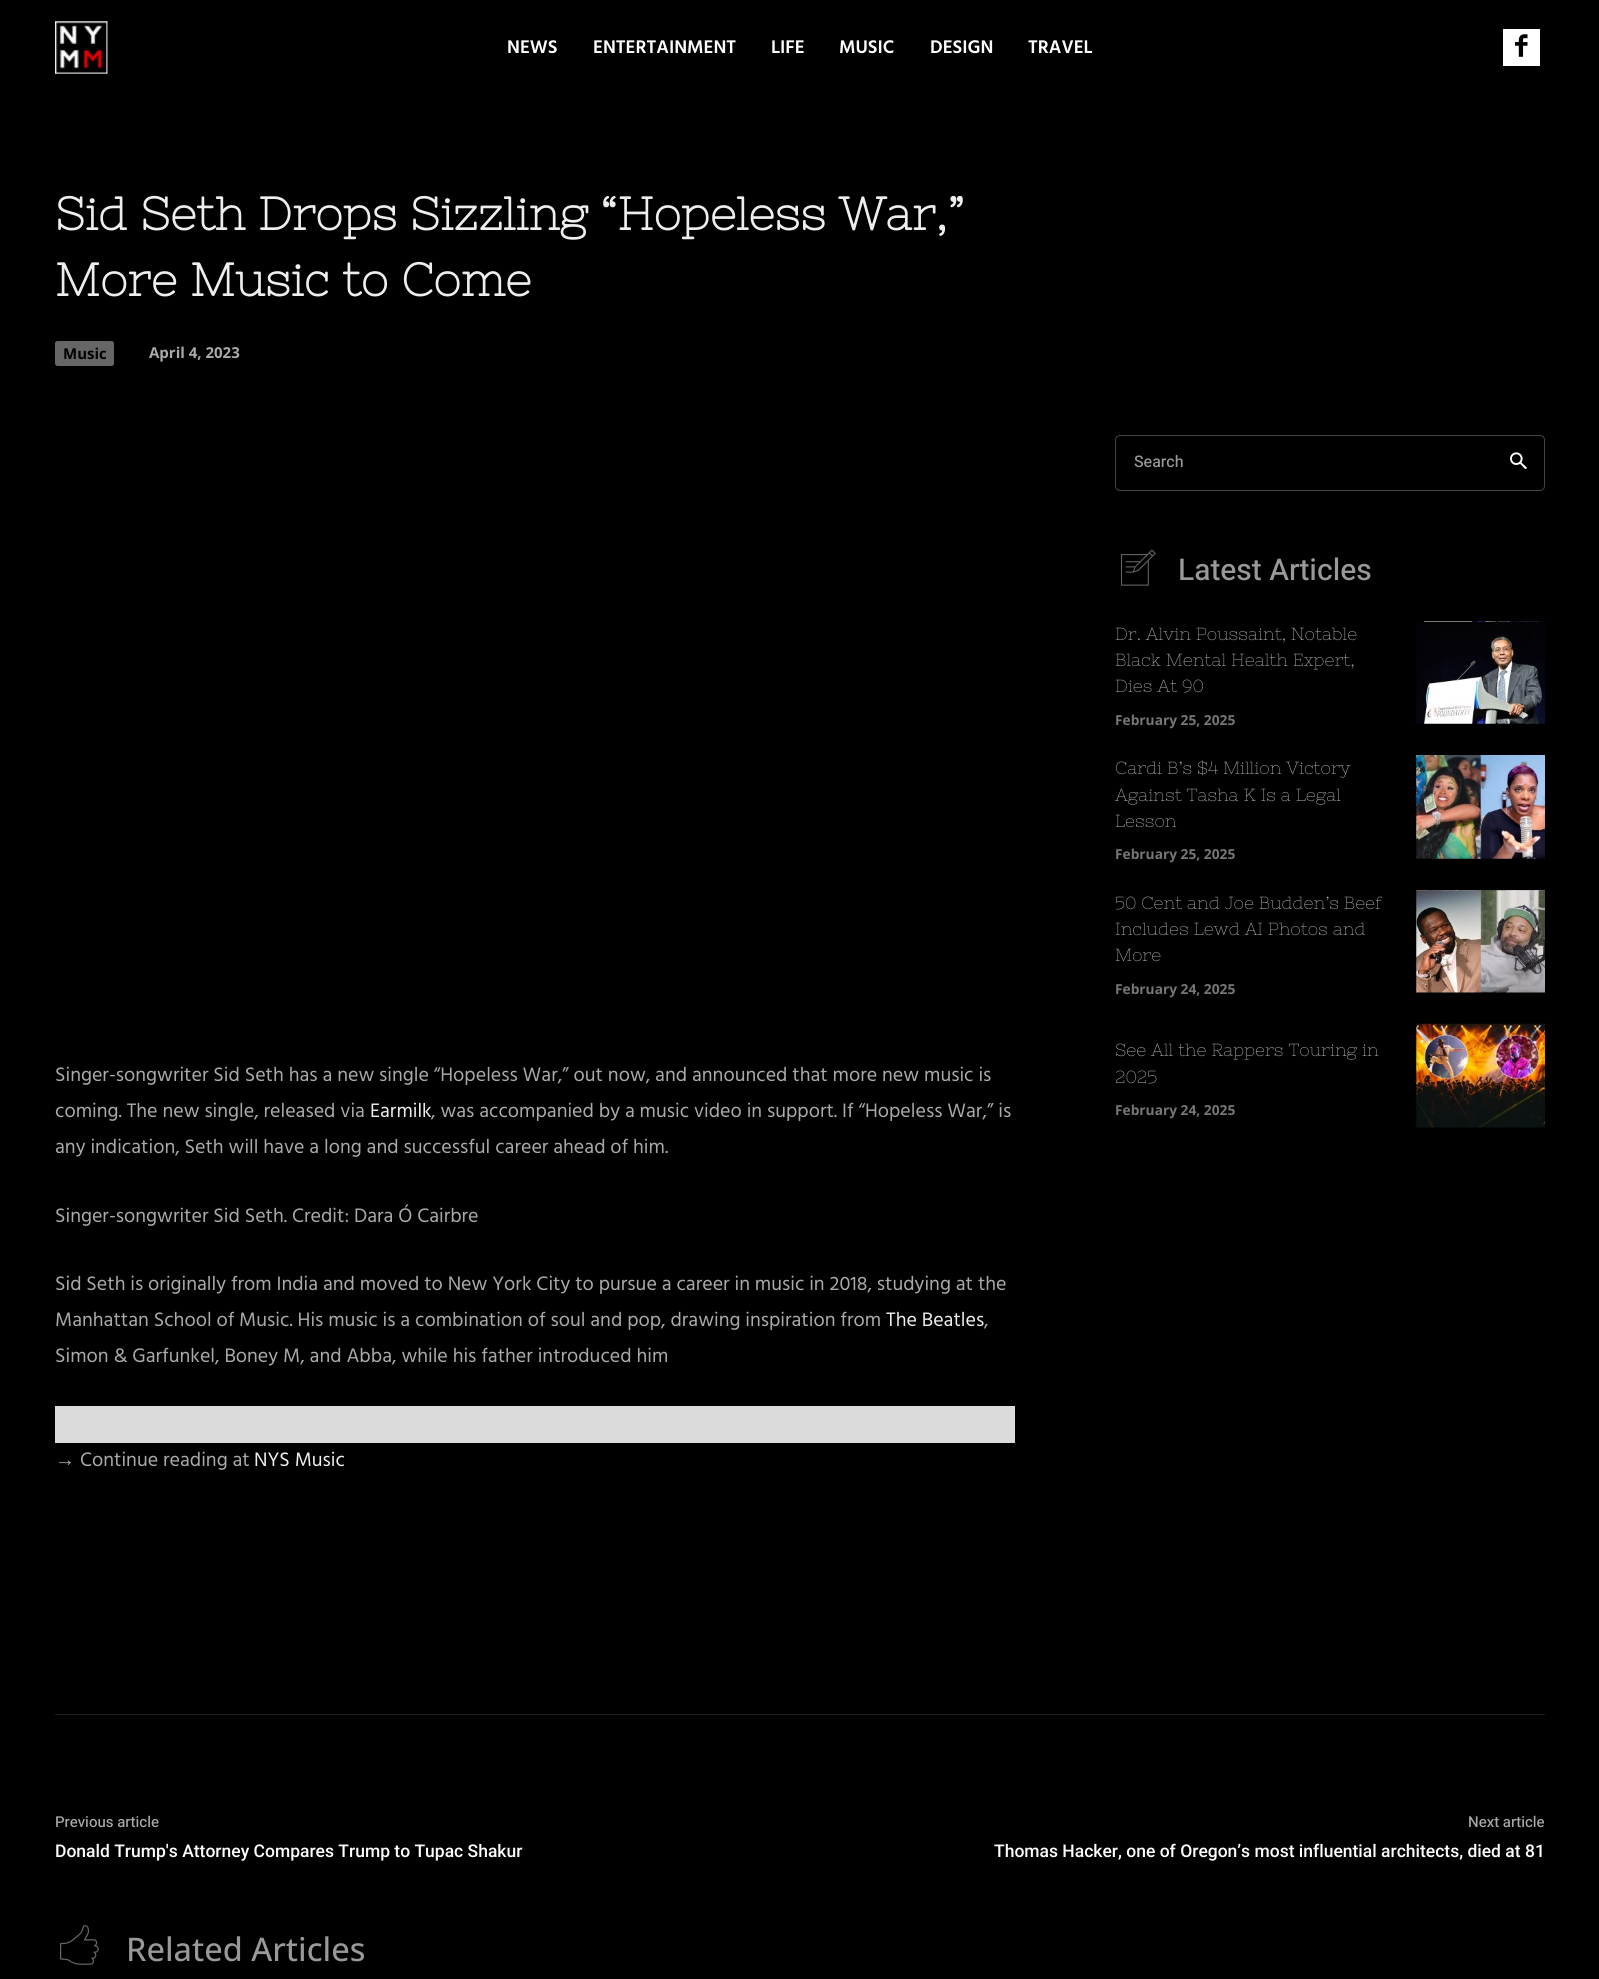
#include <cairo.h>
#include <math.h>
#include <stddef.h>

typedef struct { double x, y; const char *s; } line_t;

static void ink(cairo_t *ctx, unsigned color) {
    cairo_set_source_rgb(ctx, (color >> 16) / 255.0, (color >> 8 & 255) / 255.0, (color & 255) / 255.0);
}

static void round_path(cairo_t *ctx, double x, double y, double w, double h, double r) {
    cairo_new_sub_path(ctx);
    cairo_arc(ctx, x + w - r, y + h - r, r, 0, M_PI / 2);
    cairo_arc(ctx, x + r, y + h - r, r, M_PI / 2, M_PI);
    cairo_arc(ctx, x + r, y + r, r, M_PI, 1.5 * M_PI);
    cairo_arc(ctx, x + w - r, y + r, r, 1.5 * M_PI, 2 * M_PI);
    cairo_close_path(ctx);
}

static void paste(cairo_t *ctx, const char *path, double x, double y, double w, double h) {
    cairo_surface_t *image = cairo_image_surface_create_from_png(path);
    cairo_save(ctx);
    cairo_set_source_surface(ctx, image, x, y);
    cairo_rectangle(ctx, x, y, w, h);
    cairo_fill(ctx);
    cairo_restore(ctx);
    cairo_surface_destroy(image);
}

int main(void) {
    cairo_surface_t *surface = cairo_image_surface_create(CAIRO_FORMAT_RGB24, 1599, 1979);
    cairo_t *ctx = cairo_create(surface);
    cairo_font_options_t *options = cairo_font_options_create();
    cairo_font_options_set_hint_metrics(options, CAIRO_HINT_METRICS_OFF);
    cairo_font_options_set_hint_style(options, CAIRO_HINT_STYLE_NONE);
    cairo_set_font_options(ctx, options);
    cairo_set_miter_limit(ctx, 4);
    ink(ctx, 0x000000);
    cairo_paint(ctx);
    paste(ctx, "media/1.png", 55, 21, 53, 53);
    cairo_select_font_face(ctx, "Hind Madurai SemiBold", CAIRO_FONT_SLANT_NORMAL, CAIRO_FONT_WEIGHT_NORMAL);
    cairo_set_font_size(ctx, 18.75);
    ink(ctx, 0xFFFFFF);
    {
        static const line_t items[] = {
            {507, 53, "NEWS"},
            {593, 53, "ENTERTAINMENT"},
            {771, 53, "LIFE"},
            {839, 53, "MUSIC"},
            {930, 53, "DESIGN"},
            {1028, 53, "TRAVEL"},
        };
        for (size_t i = 0; i < sizeof items / sizeof *items; i++) {
            cairo_move_to(ctx, items[i].x, items[i].y);
            cairo_show_text(ctx, items[i].s);
        }
    }
    cairo_rectangle(ctx, 1503, 29, 37, 37);
    cairo_fill(ctx);
    paste(ctx, "media/2.png", 1515, 34, 13, 23);
    cairo_select_font_face(ctx, "Nixie One", CAIRO_FONT_SLANT_NORMAL, CAIRO_FONT_WEIGHT_BOLD);
    cairo_set_font_size(ctx, 46.25);
    ink(ctx, 0xEEEEEE);
    cairo_move_to(ctx, 55, 230);
    cairo_show_text(ctx, "Sid Seth Drops Sizzling “Hopeless War,”");
    cairo_move_to(ctx, 55, 296);
    cairo_show_text(ctx, "More Music to Come");
    ink(ctx, 0x666666);
    round_path(ctx, 55, 341, 59, 25, 2.5);
    cairo_fill(ctx);
    cairo_select_font_face(ctx, "Open Sans", CAIRO_FONT_SLANT_NORMAL, CAIRO_FONT_WEIGHT_BOLD);
    cairo_set_font_size(ctx, 15);
    ink(ctx, 0x000000);
    cairo_move_to(ctx, 63, 359);
    cairo_show_text(ctx, "Music");
    ink(ctx, 0xAAAAAA);
    cairo_move_to(ctx, 149, 358);
    cairo_show_text(ctx, "April 4, 2023");
    round_path(ctx, 1115.5, 435.5, 429, 55, 4.5);
    ink(ctx, 0x444444);
    cairo_set_line_width(ctx, 1);
    cairo_stroke(ctx);
    cairo_select_font_face(ctx, "Heebo Medium", CAIRO_FONT_SLANT_NORMAL, CAIRO_FONT_WEIGHT_NORMAL);
    cairo_set_font_size(ctx, 16);
    ink(ctx, 0x999999);
    cairo_move_to(ctx, 1134, 467);
    cairo_show_text(ctx, "Search");
    paste(ctx, "media/3.png", 1510, 452, 17, 17);
    paste(ctx, "media/4.png", 1121, 549, 35, 37);
    cairo_set_font_size(ctx, 30);
    cairo_move_to(ctx, 1178, 580);
    cairo_show_text(ctx, "Latest Articles");
    cairo_select_font_face(ctx, "Nixie One", CAIRO_FONT_SLANT_NORMAL, CAIRO_FONT_WEIGHT_NORMAL);
    cairo_set_font_size(ctx, 17.5);
    ink(ctx, 0xAAAAAA);
    {
        static const line_t items[] = {
            {1115, 640, "Dr. Alvin Poussaint, Notable"},
            {1115, 666, "Black Mental Health Expert,"},
            {1115, 692, "Dies At 90"},
        };
        for (size_t i = 0; i < sizeof items / sizeof *items; i++) {
            cairo_move_to(ctx, items[i].x, items[i].y);
            cairo_show_text(ctx, items[i].s);
        }
    }
    cairo_select_font_face(ctx, "Open Sans", CAIRO_FONT_SLANT_NORMAL, CAIRO_FONT_WEIGHT_BOLD);
    cairo_set_font_size(ctx, 13.75);
    ink(ctx, 0x767676);
    cairo_move_to(ctx, 1115, 725);
    cairo_show_text(ctx, "February 25, 2025");
    paste(ctx, "media/5.png", 1416, 621, 129, 103);
    cairo_select_font_face(ctx, "Nixie One", CAIRO_FONT_SLANT_NORMAL, CAIRO_FONT_WEIGHT_NORMAL);
    cairo_set_font_size(ctx, 17.5);
    ink(ctx, 0xAAAAAA);
    {
        static const line_t items[] = {
            {1115, 774, "Cardi B’s $4 Million Victory"},
            {1115, 801, "Against Tasha K Is a Legal"},
            {1115, 827, "Lesson"},
        };
        for (size_t i = 0; i < sizeof items / sizeof *items; i++) {
            cairo_move_to(ctx, items[i].x, items[i].y);
            cairo_show_text(ctx, items[i].s);
        }
    }
    cairo_select_font_face(ctx, "Open Sans", CAIRO_FONT_SLANT_NORMAL, CAIRO_FONT_WEIGHT_BOLD);
    cairo_set_font_size(ctx, 13.75);
    ink(ctx, 0x767676);
    cairo_move_to(ctx, 1115, 859);
    cairo_show_text(ctx, "February 25, 2025");
    paste(ctx, "media/6.png", 1416, 755, 129, 104);
    cairo_select_font_face(ctx, "Nixie One", CAIRO_FONT_SLANT_NORMAL, CAIRO_FONT_WEIGHT_NORMAL);
    cairo_set_font_size(ctx, 17.5);
    ink(ctx, 0xAAAAAA);
    {
        static const line_t items[] = {
            {1115, 909, "50 Cent and Joe Budden’s Beef"},
            {1115, 935, "Includes Lewd AI Photos and"},
            {1115, 961, "More"},
        };
        for (size_t i = 0; i < sizeof items / sizeof *items; i++) {
            cairo_move_to(ctx, items[i].x, items[i].y);
            cairo_show_text(ctx, items[i].s);
        }
    }
    cairo_select_font_face(ctx, "Open Sans", CAIRO_FONT_SLANT_NORMAL, CAIRO_FONT_WEIGHT_BOLD);
    cairo_set_font_size(ctx, 13.75);
    ink(ctx, 0x767676);
    cairo_move_to(ctx, 1115, 994);
    cairo_show_text(ctx, "February 24, 2025");
    paste(ctx, "media/7.png", 1416, 890, 129, 103);
    cairo_select_font_face(ctx, "Nixie One", CAIRO_FONT_SLANT_NORMAL, CAIRO_FONT_WEIGHT_NORMAL);
    cairo_set_font_size(ctx, 17.5);
    ink(ctx, 0xAAAAAA);
    cairo_move_to(ctx, 1115, 1056);
    cairo_show_text(ctx, "See All the Rappers Touring in");
    cairo_move_to(ctx, 1115, 1083);
    cairo_show_text(ctx, "2025");
    cairo_select_font_face(ctx, "Open Sans", CAIRO_FONT_SLANT_NORMAL, CAIRO_FONT_WEIGHT_BOLD);
    cairo_set_font_size(ctx, 13.75);
    ink(ctx, 0x767676);
    cairo_move_to(ctx, 1115, 1115);
    cairo_show_text(ctx, "February 24, 2025");
    paste(ctx, "media/8.png", 1416, 1023, 129, 105);
    cairo_select_font_face(ctx, "Hind Madurai", CAIRO_FONT_SLANT_NORMAL, CAIRO_FONT_WEIGHT_NORMAL);
    cairo_set_font_size(ctx, 20);
    ink(ctx, 0xAAAAAA);
    cairo_move_to(ctx, 55, 1081);
    cairo_show_text(ctx, "Singer-songwriter Sid Seth has a new single “Hopeless War,” out now, and announced that more new music is");
    cairo_move_to(ctx, 55, 1117);
    cairo_show_text(ctx, "coming. The new single, released via");
    ink(ctx, 0xEEEEEE);
    cairo_move_to(ctx, 370, 1117);
    cairo_show_text(ctx, "Earmilk");
    ink(ctx, 0xAAAAAA);
    {
        static const line_t items[] = {
            {431, 1117, ", was accompanied by a music video in support. If “Hopeless War,” is"},
            {55, 1153, "any indication, Seth will have a long and successful career ahead of him."},
            {55, 1222, "Singer-songwriter Sid Seth. Credit: Dara Ó Cairbre"},
            {55, 1290, "Sid Seth is originally from India and moved to New York City to pursue a career in music in 2018, studying at the"},
            {55, 1326, "Manhattan School of Music. His music is a combination of soul and pop, drawing inspiration from"},
        };
        for (size_t i = 0; i < sizeof items / sizeof *items; i++) {
            cairo_move_to(ctx, items[i].x, items[i].y);
            cairo_show_text(ctx, items[i].s);
        }
    }
    ink(ctx, 0xEEEEEE);
    cairo_move_to(ctx, 886, 1326);
    cairo_show_text(ctx, "The Beatles");
    ink(ctx, 0xAAAAAA);
    cairo_move_to(ctx, 984, 1326);
    cairo_show_text(ctx, ",");
    cairo_move_to(ctx, 55, 1362);
    cairo_show_text(ctx, "Simon & Garfunkel, Boney M, and Abba, while his father introduced him");
    ink(ctx, 0xDBDBDB);
    cairo_rectangle(ctx, 55, 1406, 960, 37);
    cairo_fill(ctx);
    cairo_select_font_face(ctx, "Liberation Serif", CAIRO_FONT_SLANT_NORMAL, CAIRO_FONT_WEIGHT_NORMAL);
    ink(ctx, 0xAAAAAA);
    cairo_move_to(ctx, 55, 1466);
    cairo_show_text(ctx, "→");
    cairo_select_font_face(ctx, "Hind Madurai", CAIRO_FONT_SLANT_NORMAL, CAIRO_FONT_WEIGHT_NORMAL);
    cairo_move_to(ctx, 80, 1466);
    cairo_show_text(ctx, "Continue reading at");
    ink(ctx, 0xEEEEEE);
    cairo_move_to(ctx, 254, 1466);
    cairo_show_text(ctx, "NYS Music");
    ink(ctx, 0x1F1E1E);
    cairo_rectangle(ctx, 55, 1714, 1490, 1);
    cairo_fill(ctx);
    cairo_select_font_face(ctx, "Heebo Medium", CAIRO_FONT_SLANT_NORMAL, CAIRO_FONT_WEIGHT_NORMAL);
    cairo_set_font_size(ctx, 15);
    ink(ctx, 0xAAAAAA);
    cairo_move_to(ctx, 55, 1827);
    cairo_show_text(ctx, "Previous article");
    cairo_select_font_face(ctx, "Roboto Medium", CAIRO_FONT_SLANT_NORMAL, CAIRO_FONT_WEIGHT_NORMAL);
    cairo_set_font_size(ctx, 17.5);
    ink(ctx, 0xFFFFFF);
    cairo_move_to(ctx, 55, 1857);
    cairo_show_text(ctx, "Donald Trump's Attorney Compares Trump to Tupac Shakur");
    cairo_select_font_face(ctx, "Heebo Medium", CAIRO_FONT_SLANT_NORMAL, CAIRO_FONT_WEIGHT_NORMAL);
    cairo_set_font_size(ctx, 15);
    ink(ctx, 0xAAAAAA);
    cairo_move_to(ctx, 1468, 1827);
    cairo_show_text(ctx, "Next article");
    cairo_select_font_face(ctx, "Roboto Medium", CAIRO_FONT_SLANT_NORMAL, CAIRO_FONT_WEIGHT_NORMAL);
    cairo_set_font_size(ctx, 17.5);
    ink(ctx, 0xFFFFFF);
    cairo_move_to(ctx, 994, 1857);
    cairo_show_text(ctx, "Thomas Hacker, one of Oregon’s most influential architects, died at 81");
    paste(ctx, "media/9.png", 60, 1925, 39, 40);
    cairo_select_font_face(ctx, "Open Sans Medium", CAIRO_FONT_SLANT_NORMAL, CAIRO_FONT_WEIGHT_NORMAL);
    cairo_set_font_size(ctx, 32.5);
    ink(ctx, 0x999999);
    cairo_move_to(ctx, 126, 1961);
    cairo_show_text(ctx, "Related Articles");
    cairo_surface_write_to_png(surface, "image.png");
    cairo_font_options_destroy(options);
    cairo_destroy(ctx);
    cairo_surface_destroy(surface);
    return 0;
}
